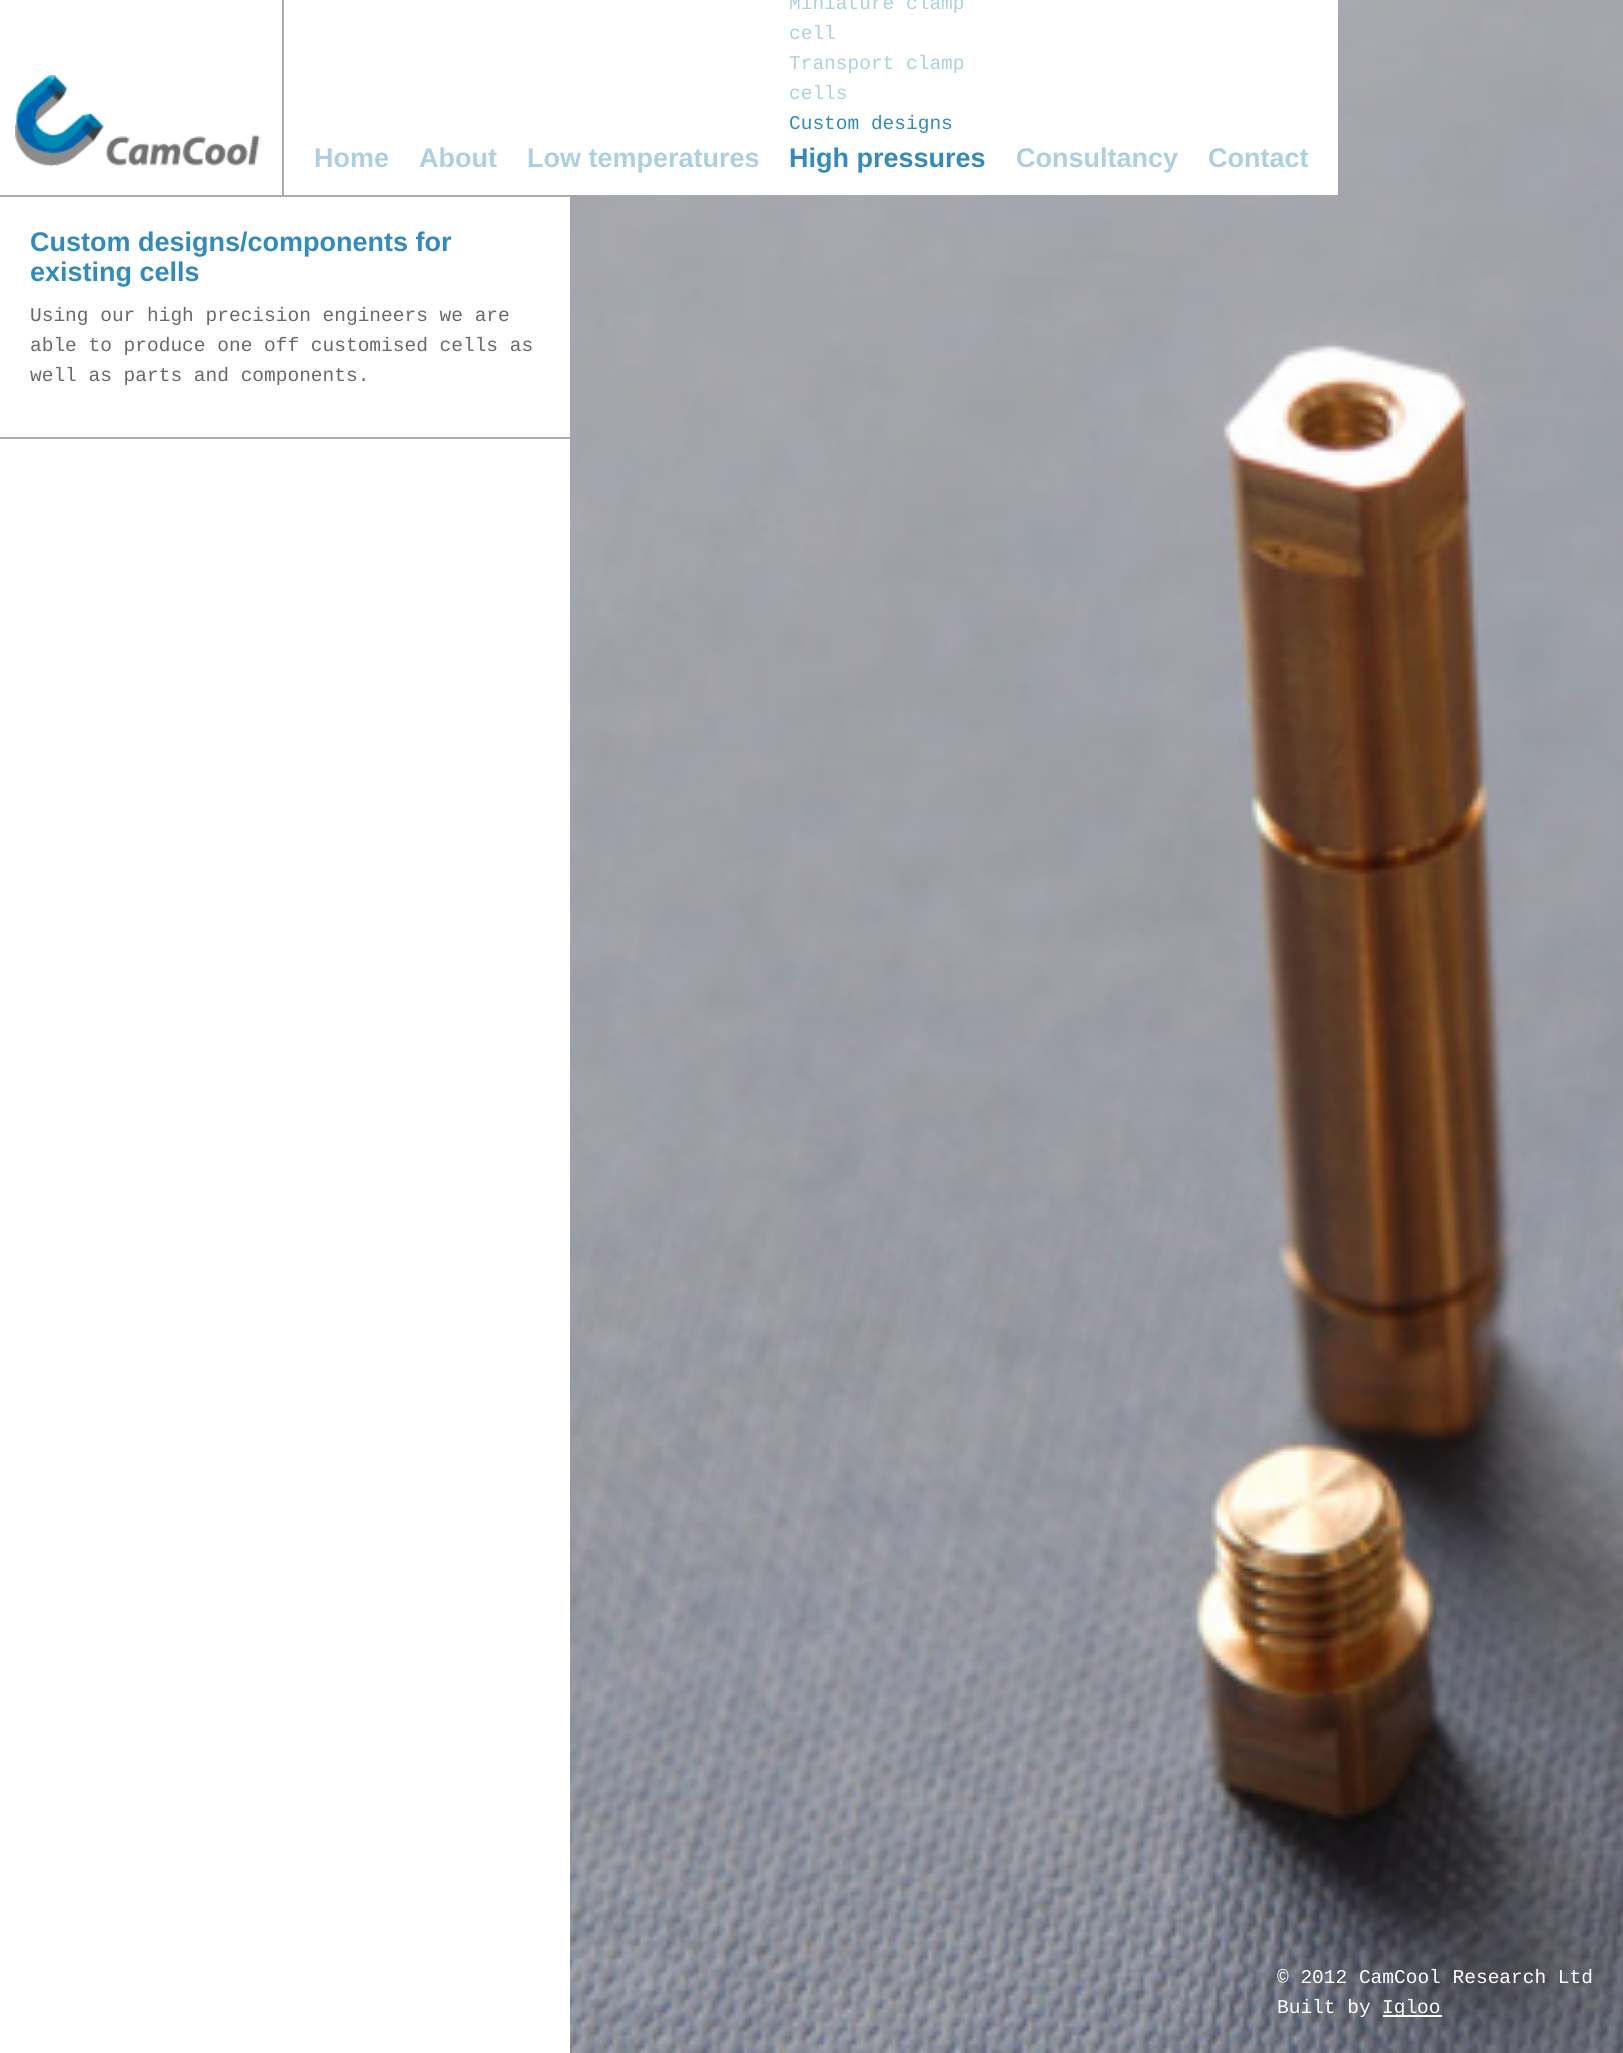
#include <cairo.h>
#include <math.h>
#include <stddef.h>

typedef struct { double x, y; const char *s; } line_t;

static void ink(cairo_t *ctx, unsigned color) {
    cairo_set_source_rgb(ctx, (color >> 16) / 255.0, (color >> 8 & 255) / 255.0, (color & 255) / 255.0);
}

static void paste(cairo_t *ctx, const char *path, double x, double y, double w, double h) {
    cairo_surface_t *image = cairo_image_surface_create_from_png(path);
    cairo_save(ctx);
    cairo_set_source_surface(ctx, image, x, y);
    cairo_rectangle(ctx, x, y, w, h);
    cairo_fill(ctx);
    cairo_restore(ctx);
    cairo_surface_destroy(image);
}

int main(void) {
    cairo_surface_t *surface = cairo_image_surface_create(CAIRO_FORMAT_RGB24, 1623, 2053);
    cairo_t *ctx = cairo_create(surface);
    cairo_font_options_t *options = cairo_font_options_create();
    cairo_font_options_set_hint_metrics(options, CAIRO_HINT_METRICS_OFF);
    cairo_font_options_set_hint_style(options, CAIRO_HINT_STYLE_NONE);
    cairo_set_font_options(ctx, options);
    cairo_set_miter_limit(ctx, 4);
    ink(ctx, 0xFFFFFF);
    cairo_paint(ctx);
    paste(ctx, "media/2.png", 570, 0, 1053, 2053);
    ink(ctx, 0xFFFFFF);
    cairo_rectangle(ctx, 570, 0, 768, 195);
    cairo_fill(ctx);
    paste(ctx, "media/1.png", 15, 75, 245, 92);
    ink(ctx, 0xAAABB0);
    cairo_rectangle(ctx, 282, 0, 2, 195);
    cairo_fill(ctx);
    cairo_select_font_face(ctx, "Liberation Sans", CAIRO_FONT_SLANT_NORMAL, CAIRO_FONT_WEIGHT_BOLD);
    cairo_set_font_size(ctx, 27);
    ink(ctx, 0xACD0DF);
    {
        static const line_t items[] = {
            {314, 167, "Home"},
            {419, 167, "About"},
            {527, 167, "Low temperatures"},
        };
        for (size_t i = 0; i < sizeof items / sizeof *items; i++) {
            cairo_move_to(ctx, items[i].x, items[i].y);
            cairo_show_text(ctx, items[i].s);
        }
    }
    cairo_select_font_face(ctx, "Liberation Mono", CAIRO_FONT_SLANT_NORMAL, CAIRO_FONT_WEIGHT_NORMAL);
    cairo_set_font_size(ctx, 19.5);
    {
        static const line_t items[] = {
            {789, 9, "Miniature clamp"},
            {789, 39, "cell"},
            {789, 69, "Transport clamp"},
            {789, 99, "cells"},
        };
        for (size_t i = 0; i < sizeof items / sizeof *items; i++) {
            cairo_move_to(ctx, items[i].x, items[i].y);
            cairo_show_text(ctx, items[i].s);
        }
    }
    ink(ctx, 0x338BBD);
    cairo_move_to(ctx, 789, 129);
    cairo_show_text(ctx, "Custom designs");
    cairo_select_font_face(ctx, "Liberation Sans", CAIRO_FONT_SLANT_NORMAL, CAIRO_FONT_WEIGHT_BOLD);
    cairo_set_font_size(ctx, 27);
    cairo_move_to(ctx, 789, 167);
    cairo_show_text(ctx, "High pressures");
    ink(ctx, 0xACD0DF);
    cairo_move_to(ctx, 1016, 167);
    cairo_show_text(ctx, "Consultancy");
    cairo_move_to(ctx, 1208, 167);
    cairo_show_text(ctx, "Contact");
    ink(ctx, 0xAAABB0);
    cairo_rectangle(ctx, 0, 195, 570, 2);
    cairo_fill(ctx);
    cairo_rectangle(ctx, 0, 437, 570, 2);
    cairo_fill(ctx);
    ink(ctx, 0x338BBD);
    cairo_move_to(ctx, 30, 251);
    cairo_show_text(ctx, "Custom designs/components for");
    cairo_move_to(ctx, 30, 281);
    cairo_show_text(ctx, "existing cells");
    cairo_select_font_face(ctx, "Liberation Mono", CAIRO_FONT_SLANT_NORMAL, CAIRO_FONT_WEIGHT_NORMAL);
    cairo_set_font_size(ctx, 19.5);
    ink(ctx, 0x69696C);
    {
        static const line_t items[] = {
            {30, 321, "Using our high precision engineers we are"},
            {30, 351, "able to produce one off customised cells as"},
            {30, 381, "well as parts and components."},
        };
        for (size_t i = 0; i < sizeof items / sizeof *items; i++) {
            cairo_move_to(ctx, items[i].x, items[i].y);
            cairo_show_text(ctx, items[i].s);
        }
    }
    ink(ctx, 0xFFFFFF);
    cairo_move_to(ctx, 1277, 1983);
    cairo_show_text(ctx, "© 2012 CamCool Research Ltd");
    cairo_move_to(ctx, 1277, 2013);
    cairo_show_text(ctx, "Built by");
    cairo_rectangle(ctx, 1383, 2015, 59, 2);
    cairo_fill(ctx);
    cairo_move_to(ctx, 1382, 2013);
    cairo_show_text(ctx, "Igloo");
    cairo_surface_write_to_png(surface, "image.png");
    cairo_font_options_destroy(options);
    cairo_destroy(ctx);
    cairo_surface_destroy(surface);
    return 0;
}
